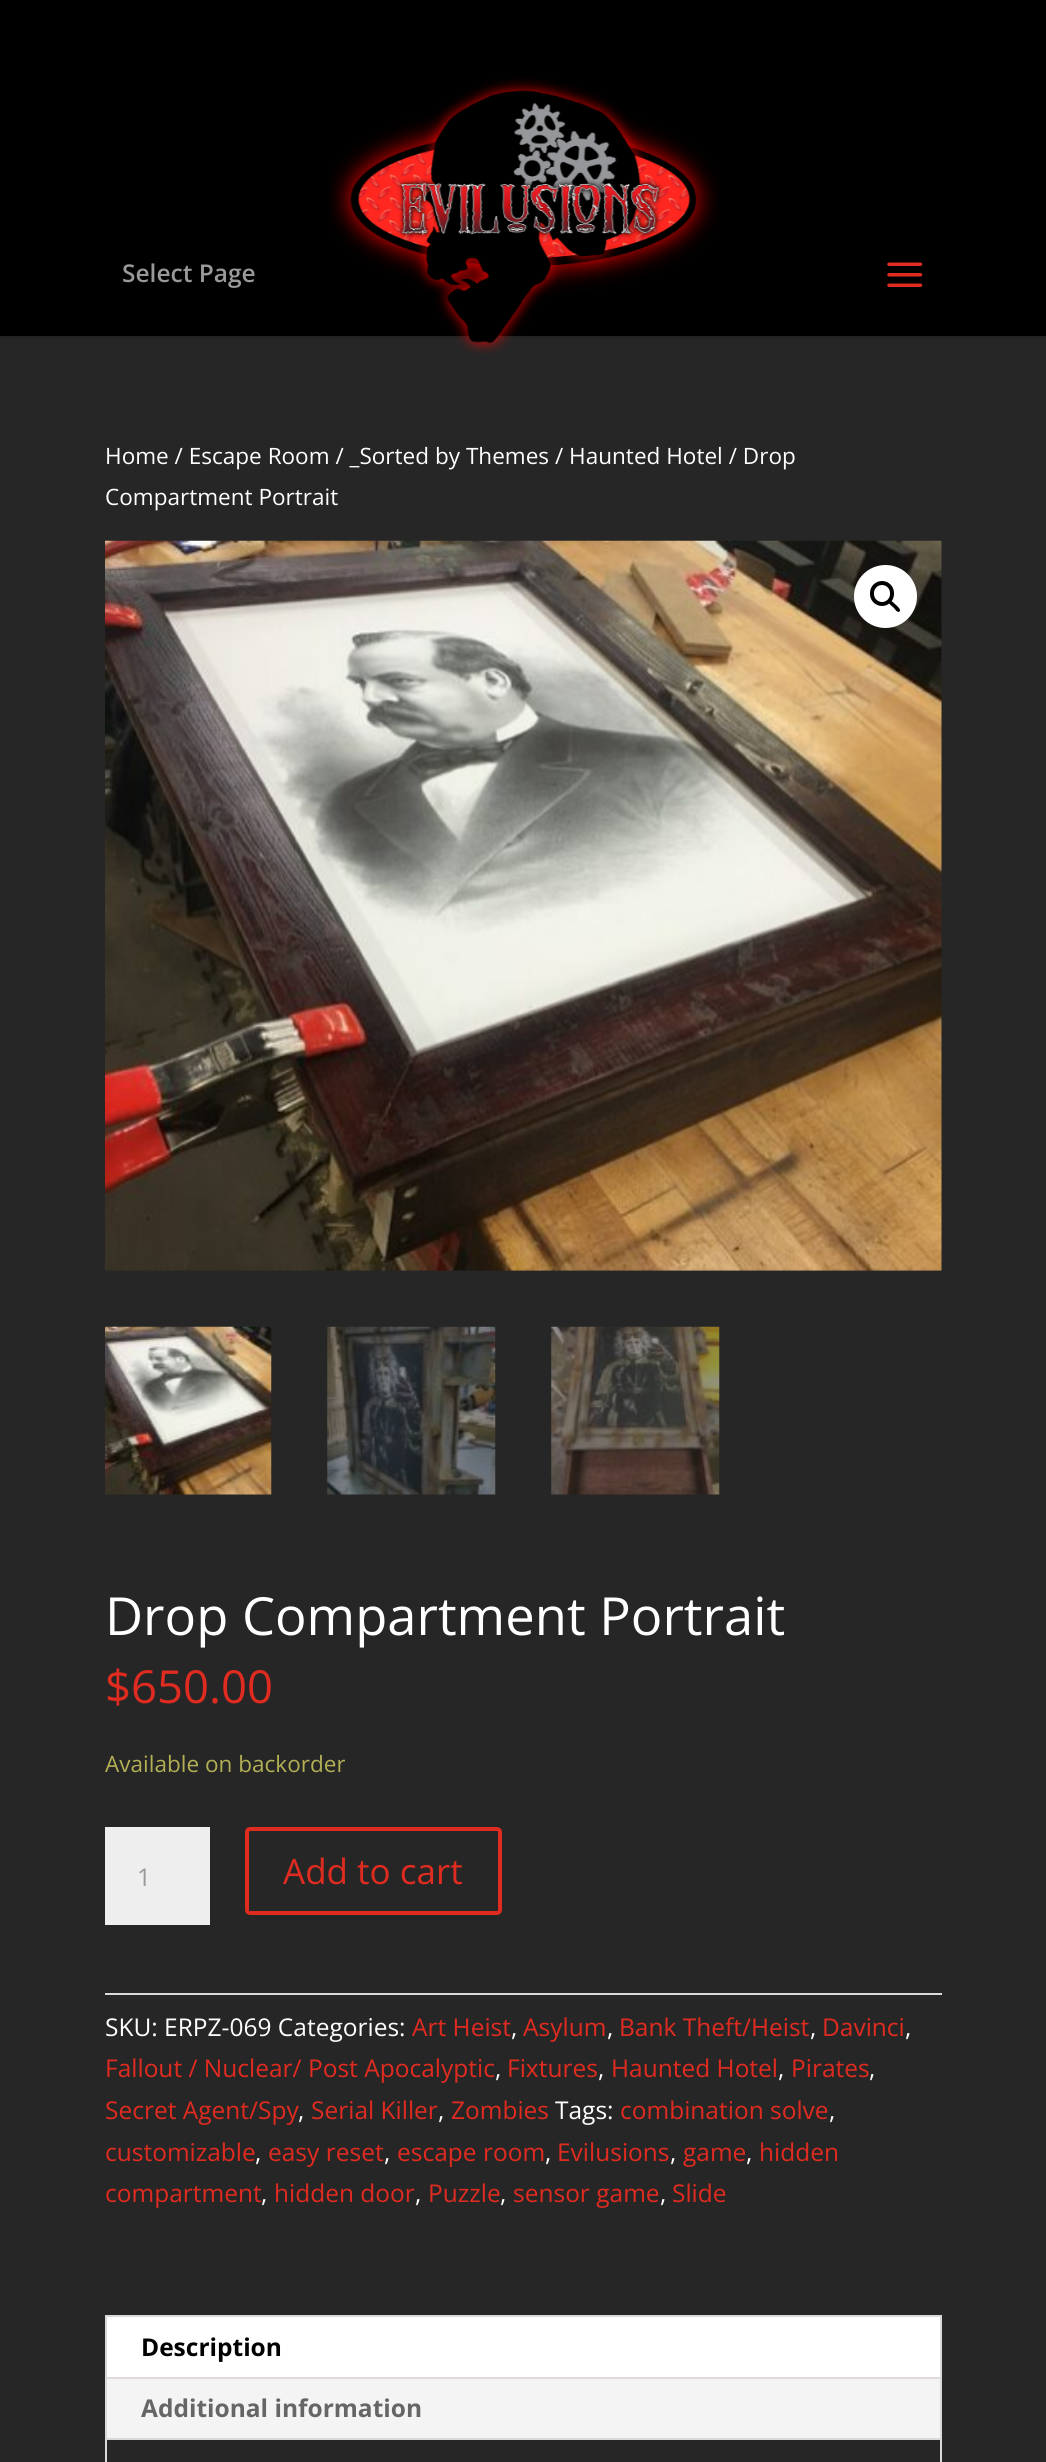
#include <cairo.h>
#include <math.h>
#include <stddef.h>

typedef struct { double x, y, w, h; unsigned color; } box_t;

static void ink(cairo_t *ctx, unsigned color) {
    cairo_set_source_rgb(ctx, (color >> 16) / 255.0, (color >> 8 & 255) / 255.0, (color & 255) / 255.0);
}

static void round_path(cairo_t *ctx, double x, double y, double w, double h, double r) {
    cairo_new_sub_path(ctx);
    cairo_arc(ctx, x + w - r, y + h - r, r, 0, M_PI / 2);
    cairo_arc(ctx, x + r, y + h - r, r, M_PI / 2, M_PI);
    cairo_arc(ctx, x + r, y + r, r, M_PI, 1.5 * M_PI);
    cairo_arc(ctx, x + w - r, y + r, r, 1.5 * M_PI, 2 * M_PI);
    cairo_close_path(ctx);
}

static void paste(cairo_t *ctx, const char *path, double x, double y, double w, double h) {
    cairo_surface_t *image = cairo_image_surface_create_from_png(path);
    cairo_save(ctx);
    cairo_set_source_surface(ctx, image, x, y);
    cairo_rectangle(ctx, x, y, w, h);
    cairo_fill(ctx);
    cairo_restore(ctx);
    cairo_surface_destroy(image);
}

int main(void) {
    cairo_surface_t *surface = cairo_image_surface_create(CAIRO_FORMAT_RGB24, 1046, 2462);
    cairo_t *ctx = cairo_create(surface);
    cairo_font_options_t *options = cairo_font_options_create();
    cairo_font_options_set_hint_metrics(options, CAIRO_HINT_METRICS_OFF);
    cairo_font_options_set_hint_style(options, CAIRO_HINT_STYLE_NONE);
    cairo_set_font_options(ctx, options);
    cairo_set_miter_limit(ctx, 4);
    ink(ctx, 0x262626);
    cairo_paint(ctx);
    ink(ctx, 0x222222);
    cairo_new_path(ctx);
    cairo_move_to(ctx, 0, 336);
    cairo_line_to(ctx, 0, 338);
    cairo_line_to(ctx, 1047, 338);
    cairo_line_to(ctx, 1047, 2);
    cairo_line_to(ctx, 1046, 2);
    cairo_line_to(ctx, 1046, 336);
    cairo_close_path(ctx);
    cairo_fill(ctx);
    ink(ctx, 0x000000);
    cairo_rectangle(ctx, 0, 0, 1046, 336);
    cairo_fill(ctx);
    paste(ctx, "media/2.png", 329, 78, 390, 277);
    cairo_set_source_rgba(ctx, 0, 0, 0, 0.05);
    cairo_rectangle(ctx, 375, 245, 297, 56);
    cairo_fill(ctx);
    cairo_select_font_face(ctx, "Open Sans SemiBold", CAIRO_FONT_SLANT_NORMAL, CAIRO_FONT_WEIGHT_NORMAL);
    cairo_set_font_size(ctx, 24.5);
    ink(ctx, 0x999999);
    cairo_move_to(ctx, 122, 282);
    cairo_show_text(ctx, "Select Page");
    paste(ctx, "media/1.png", 887, 262, 36, 25);
    cairo_select_font_face(ctx, "Open Sans", CAIRO_FONT_SLANT_NORMAL, CAIRO_FONT_WEIGHT_NORMAL);
    cairo_set_font_size(ctx, 22.55);
    ink(ctx, 0xFFFFFF);
    cairo_move_to(ctx, 105, 464);
    cairo_show_text(ctx, "Home / Escape Room / _Sorted by Themes / Haunted Hotel / Drop");
    cairo_move_to(ctx, 105, 505);
    cairo_show_text(ctx, "Compartment Portrait");
    paste(ctx, "media/3.png", 105, 540, 837, 731);
    cairo_arc(ctx, 885.5, 596.5, 31.5, 0, 2 * M_PI);
    cairo_fill(ctx);
    round_path(ctx, 872, 583, 20, 21, 10);
    ink(ctx, 0x000000);
    cairo_set_line_width(ctx, 4);
    cairo_stroke(ctx);
    cairo_new_path(ctx);
    cairo_move_to(ctx, 889.5, 601.5);
    cairo_curve_to(ctx, 891.5, 599.5, 894.5, 604, 896, 605);
    cairo_curve_to(ctx, 897, 606, 901.5, 609.5, 899.5, 611.5);
    cairo_curve_to(ctx, 897.5, 613.5, 894.5, 608.5, 893.5, 607.5);
    cairo_curve_to(ctx, 892.5, 606.5, 887.5, 603.5, 889.5, 601.5);
    cairo_close_path(ctx);
    cairo_fill(ctx);
    paste(ctx, "media/4.png", 105, 1326, 167, 169);
    paste(ctx, "media/5.png", 327, 1326, 169, 169);
    paste(ctx, "media/6.png", 551, 1326, 169, 169);
    cairo_set_font_size(ctx, 52.5);
    ink(ctx, 0xFFFFFF);
    cairo_move_to(ctx, 105, 1635);
    cairo_show_text(ctx, "Drop Compartment Portrait");
    cairo_set_font_size(ctx, 45.5);
    ink(ctx, 0xE02B20);
    cairo_move_to(ctx, 105, 1703);
    cairo_show_text(ctx, "$650.00");
    cairo_set_font_size(ctx, 22.55);
    ink(ctx, 0xB3AF54);
    cairo_move_to(ctx, 105, 1772);
    cairo_show_text(ctx, "Available on backorder");
    ink(ctx, 0xEEEEEE);
    cairo_rectangle(ctx, 105, 1827, 105, 98);
    cairo_fill(ctx);
    cairo_set_font_size(ctx, 24.5);
    ink(ctx, 0x999999);
    cairo_move_to(ctx, 137, 1886);
    cairo_show_text(ctx, "1");
    round_path(ctx, 247, 1829, 253, 84, 3);
    ink(ctx, 0xE02B20);
    cairo_stroke(ctx);
    cairo_set_font_size(ctx, 35);
    cairo_move_to(ctx, 283, 1884);
    cairo_show_text(ctx, "Add to cart");
    ink(ctx, 0xDADADA);
    cairo_rectangle(ctx, 105, 1993, 837, 2);
    cairo_fill(ctx);
    cairo_set_font_size(ctx, 24.5);
    ink(ctx, 0xFFFFFF);
    cairo_move_to(ctx, 105, 2036);
    cairo_show_text(ctx, "SKU: ERPZ-069 Categories:");
    ink(ctx, 0xE02B20);
    cairo_move_to(ctx, 412, 2036);
    cairo_show_text(ctx, "Art Heist");
    ink(ctx, 0xFFFFFF);
    cairo_move_to(ctx, 511, 2036);
    cairo_show_text(ctx, ",");
    ink(ctx, 0xE02B20);
    cairo_move_to(ctx, 523, 2036);
    cairo_show_text(ctx, "Asylum");
    ink(ctx, 0xFFFFFF);
    cairo_move_to(ctx, 607, 2036);
    cairo_show_text(ctx, ",");
    ink(ctx, 0xE02B20);
    cairo_move_to(ctx, 619, 2036);
    cairo_show_text(ctx, "Bank Theft/Heist");
    ink(ctx, 0xFFFFFF);
    cairo_move_to(ctx, 810, 2036);
    cairo_show_text(ctx, ",");
    ink(ctx, 0xE02B20);
    cairo_move_to(ctx, 822, 2036);
    cairo_show_text(ctx, "Davinci");
    ink(ctx, 0xFFFFFF);
    cairo_move_to(ctx, 905, 2036);
    cairo_show_text(ctx, ",");
    ink(ctx, 0xE02B20);
    cairo_move_to(ctx, 105, 2077);
    cairo_show_text(ctx, "Fallout / Nuclear/ Post Apocalyptic");
    ink(ctx, 0xFFFFFF);
    cairo_move_to(ctx, 495, 2077);
    cairo_show_text(ctx, ",");
    ink(ctx, 0xE02B20);
    cairo_move_to(ctx, 507, 2077);
    cairo_show_text(ctx, "Fixtures");
    ink(ctx, 0xFFFFFF);
    cairo_move_to(ctx, 598, 2077);
    cairo_show_text(ctx, ",");
    ink(ctx, 0xE02B20);
    cairo_move_to(ctx, 611, 2077);
    cairo_show_text(ctx, "Haunted Hotel");
    ink(ctx, 0xFFFFFF);
    cairo_move_to(ctx, 778, 2077);
    cairo_show_text(ctx, ",");
    ink(ctx, 0xE02B20);
    cairo_move_to(ctx, 791, 2077);
    cairo_show_text(ctx, "Pirates");
    ink(ctx, 0xFFFFFF);
    cairo_move_to(ctx, 869, 2077);
    cairo_show_text(ctx, ",");
    ink(ctx, 0xE02B20);
    cairo_move_to(ctx, 105, 2119);
    cairo_show_text(ctx, "Secret Agent/Spy");
    ink(ctx, 0xFFFFFF);
    cairo_move_to(ctx, 298, 2119);
    cairo_show_text(ctx, ",");
    ink(ctx, 0xE02B20);
    cairo_move_to(ctx, 311, 2119);
    cairo_show_text(ctx, "Serial Killer");
    ink(ctx, 0xFFFFFF);
    cairo_move_to(ctx, 438, 2119);
    cairo_show_text(ctx, ",");
    ink(ctx, 0xE02B20);
    cairo_move_to(ctx, 451, 2119);
    cairo_show_text(ctx, "Zombies");
    ink(ctx, 0xFFFFFF);
    cairo_move_to(ctx, 555, 2119);
    cairo_show_text(ctx, "Tags:");
    ink(ctx, 0xE02B20);
    cairo_move_to(ctx, 620, 2119);
    cairo_show_text(ctx, "combination solve");
    ink(ctx, 0xFFFFFF);
    cairo_move_to(ctx, 829, 2119);
    cairo_show_text(ctx, ",");
    ink(ctx, 0xE02B20);
    cairo_move_to(ctx, 105, 2161);
    cairo_show_text(ctx, "customizable");
    ink(ctx, 0xFFFFFF);
    cairo_move_to(ctx, 255, 2161);
    cairo_show_text(ctx, ",");
    ink(ctx, 0xE02B20);
    cairo_move_to(ctx, 268, 2161);
    cairo_show_text(ctx, "easy reset");
    ink(ctx, 0xFFFFFF);
    cairo_move_to(ctx, 384, 2161);
    cairo_show_text(ctx, ",");
    ink(ctx, 0xE02B20);
    cairo_move_to(ctx, 397, 2161);
    cairo_show_text(ctx, "escape room");
    ink(ctx, 0xFFFFFF);
    cairo_move_to(ctx, 545, 2161);
    cairo_show_text(ctx, ",");
    ink(ctx, 0xE02B20);
    cairo_move_to(ctx, 557, 2161);
    cairo_show_text(ctx, "Evilusions");
    ink(ctx, 0xFFFFFF);
    cairo_move_to(ctx, 670, 2161);
    cairo_show_text(ctx, ",");
    ink(ctx, 0xE02B20);
    cairo_move_to(ctx, 683, 2161);
    cairo_show_text(ctx, "game");
    ink(ctx, 0xFFFFFF);
    cairo_move_to(ctx, 746, 2161);
    cairo_show_text(ctx, ",");
    ink(ctx, 0xE02B20);
    cairo_move_to(ctx, 759, 2161);
    cairo_show_text(ctx, "hidden");
    cairo_move_to(ctx, 105, 2202);
    cairo_show_text(ctx, "compartment");
    ink(ctx, 0xFFFFFF);
    cairo_move_to(ctx, 261, 2202);
    cairo_show_text(ctx, ",");
    ink(ctx, 0xE02B20);
    cairo_move_to(ctx, 274, 2202);
    cairo_show_text(ctx, "hidden door");
    ink(ctx, 0xFFFFFF);
    cairo_move_to(ctx, 415, 2202);
    cairo_show_text(ctx, ",");
    ink(ctx, 0xE02B20);
    cairo_move_to(ctx, 428, 2202);
    cairo_show_text(ctx, "Puzzle");
    ink(ctx, 0xFFFFFF);
    cairo_move_to(ctx, 500, 2202);
    cairo_show_text(ctx, ",");
    ink(ctx, 0xE02B20);
    cairo_move_to(ctx, 513, 2202);
    cairo_show_text(ctx, "sensor game");
    ink(ctx, 0xFFFFFF);
    cairo_move_to(ctx, 660, 2202);
    cairo_show_text(ctx, ",");
    ink(ctx, 0xE02B20);
    cairo_move_to(ctx, 672, 2202);
    cairo_show_text(ctx, "Slide");
    cairo_rectangle(ctx, 106, 2316, 835, 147);
    ink(ctx, 0xD9D9D9);
    cairo_set_line_width(ctx, 2);
    cairo_stroke(ctx);
    {
        static const box_t items[] = {
            {107, 2379, 833, 59, 0xF4F4F4},
            {107, 2317, 833, 60, 0xFFFFFF},
            {107, 2377, 833, 2, 0xE0DADF},
        };
        for (size_t i = 0; i < sizeof items / sizeof *items; i++) {
            ink(ctx, items[i].color);
            cairo_rectangle(ctx, items[i].x, items[i].y, items[i].w, items[i].h);
            cairo_fill(ctx);
        }
    }
    cairo_select_font_face(ctx, "Open Sans", CAIRO_FONT_SLANT_NORMAL, CAIRO_FONT_WEIGHT_BOLD);
    ink(ctx, 0x000000);
    cairo_move_to(ctx, 141, 2356);
    cairo_show_text(ctx, "Description");
    ink(ctx, 0x666666);
    cairo_move_to(ctx, 141, 2417);
    cairo_show_text(ctx, "Additional information");
    ink(ctx, 0xD9D9D9);
    cairo_rectangle(ctx, 107, 2438, 833, 2);
    cairo_fill(ctx);
    cairo_surface_write_to_png(surface, "image.png");
    cairo_font_options_destroy(options);
    cairo_destroy(ctx);
    cairo_surface_destroy(surface);
    return 0;
}
